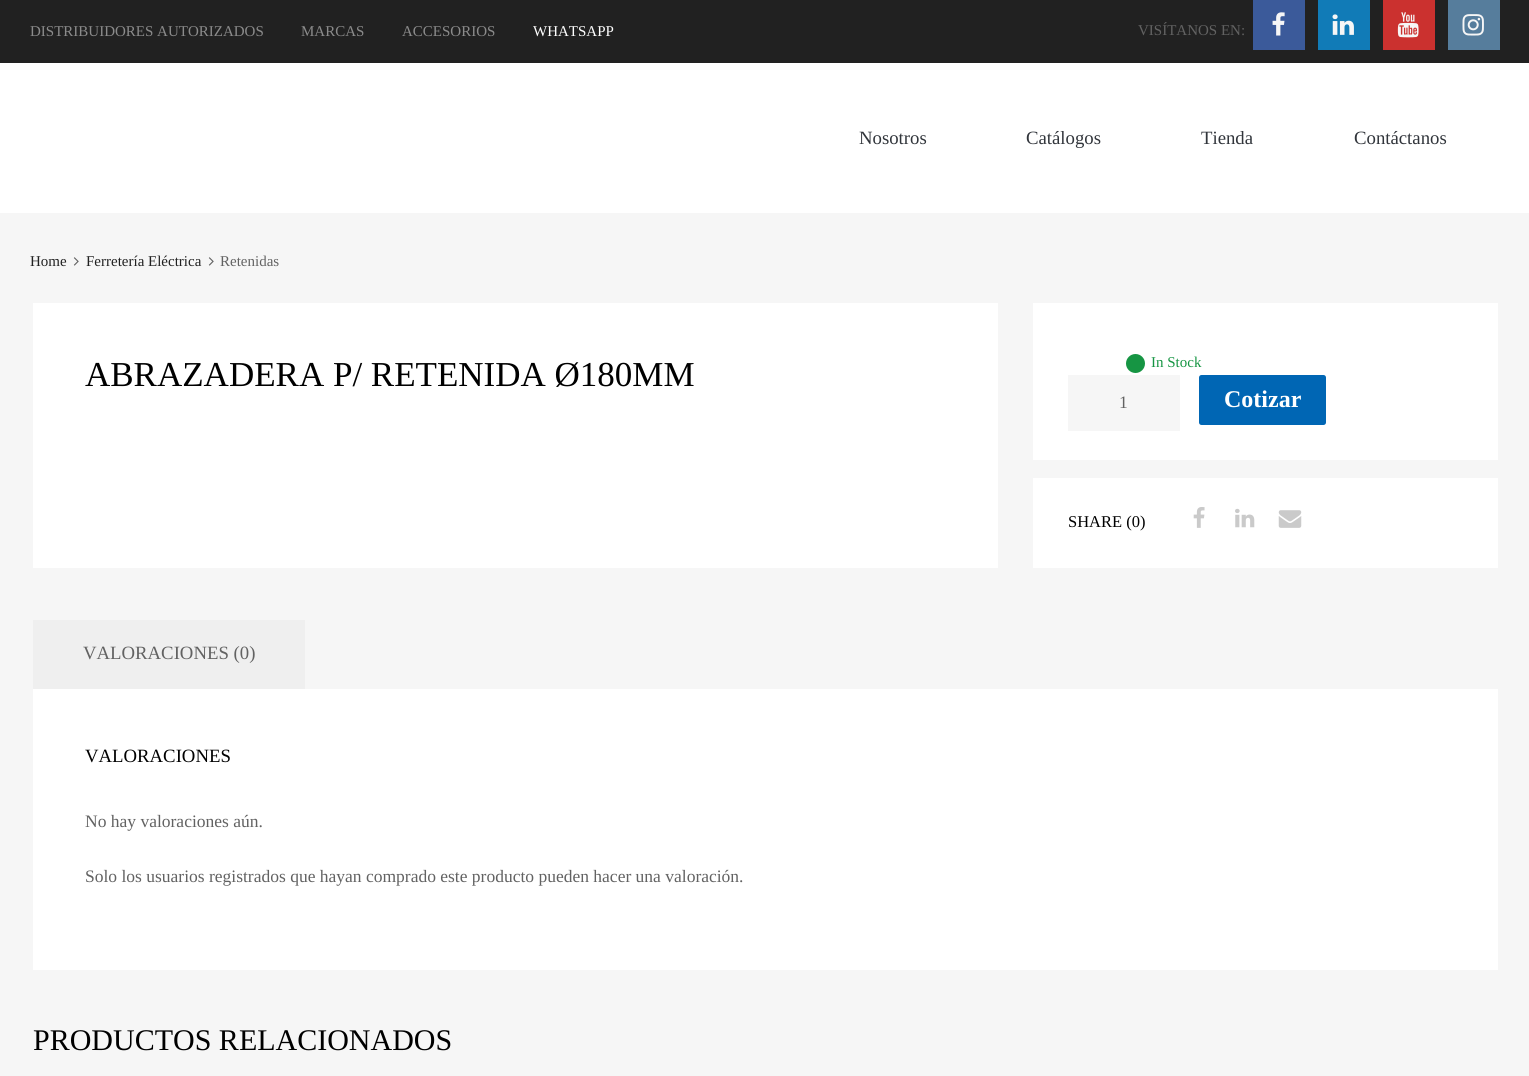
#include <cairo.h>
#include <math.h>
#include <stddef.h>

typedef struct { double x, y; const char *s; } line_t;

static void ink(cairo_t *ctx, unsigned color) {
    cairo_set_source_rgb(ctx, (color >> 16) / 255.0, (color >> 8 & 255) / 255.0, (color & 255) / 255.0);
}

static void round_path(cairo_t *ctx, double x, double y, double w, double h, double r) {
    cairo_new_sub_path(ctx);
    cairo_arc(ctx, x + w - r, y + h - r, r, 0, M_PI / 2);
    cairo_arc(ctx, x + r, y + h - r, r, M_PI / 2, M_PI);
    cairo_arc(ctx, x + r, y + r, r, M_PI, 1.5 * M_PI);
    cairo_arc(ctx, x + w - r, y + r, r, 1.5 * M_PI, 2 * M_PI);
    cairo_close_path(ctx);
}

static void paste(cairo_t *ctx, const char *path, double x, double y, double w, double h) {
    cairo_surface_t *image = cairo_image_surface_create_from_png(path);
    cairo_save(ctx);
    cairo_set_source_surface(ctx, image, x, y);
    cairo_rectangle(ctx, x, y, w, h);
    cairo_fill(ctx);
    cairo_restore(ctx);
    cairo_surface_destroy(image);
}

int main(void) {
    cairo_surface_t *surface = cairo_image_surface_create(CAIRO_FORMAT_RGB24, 1529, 1076);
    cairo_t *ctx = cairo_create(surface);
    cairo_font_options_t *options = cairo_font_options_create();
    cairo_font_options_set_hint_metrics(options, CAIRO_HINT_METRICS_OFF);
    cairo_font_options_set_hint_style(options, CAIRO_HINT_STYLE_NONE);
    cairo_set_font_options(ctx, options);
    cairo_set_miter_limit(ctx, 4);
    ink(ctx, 0xF6F6F6);
    cairo_paint(ctx);
    ink(ctx, 0xFFFFFF);
    cairo_rectangle(ctx, 0, 63, 1529, 150);
    cairo_fill(ctx);
    ink(ctx, 0x212121);
    cairo_rectangle(ctx, 0, 0, 1529, 63);
    cairo_fill(ctx);
    cairo_select_font_face(ctx, "Liberation Serif", CAIRO_FONT_SLANT_NORMAL, CAIRO_FONT_WEIGHT_NORMAL);
    cairo_set_font_size(ctx, 15);
    ink(ctx, 0x8B8B8B);
    {
        static const line_t items[] = {
            {30, 36, "DISTRIBUIDORES AUTORIZADOS"},
            {301, 36, "MARCAS"},
            {402, 36, "ACCESORIOS"},
        };
        for (size_t i = 0; i < sizeof items / sizeof *items; i++) {
            cairo_move_to(ctx, items[i].x, items[i].y);
            cairo_show_text(ctx, items[i].s);
        }
    }
    ink(ctx, 0xFFFFFF);
    cairo_move_to(ctx, 533, 36);
    cairo_show_text(ctx, "WHATSAPP");
    ink(ctx, 0x626262);
    cairo_move_to(ctx, 1138, 35);
    cairo_show_text(ctx, "VISÍTANOS EN:");
    ink(ctx, 0x3B5A9A);
    cairo_rectangle(ctx, 1253, 0, 52, 50);
    cairo_fill(ctx);
    paste(ctx, "media/1.png", 1272, 12, 13, 24);
    ink(ctx, 0x117BB7);
    cairo_rectangle(ctx, 1318, 0, 52, 50);
    cairo_fill(ctx);
    paste(ctx, "media/2.png", 1332, 14, 22, 21);
    ink(ctx, 0xCB312F);
    cairo_rectangle(ctx, 1383, 0, 52, 50);
    cairo_fill(ctx);
    paste(ctx, "media/3.png", 1397, 12, 22, 26);
    ink(ctx, 0x567D9C);
    cairo_rectangle(ctx, 1448, 0, 52, 50);
    cairo_fill(ctx);
    paste(ctx, "media/4.png", 1462, 14, 22, 22);
    cairo_set_font_size(ctx, 18.75);
    ink(ctx, 0x31353B);
    {
        static const line_t items[] = {
            {859, 144, "Nosotros"},
            {1026, 144, "Catálogos"},
            {1201, 144, "Tienda"},
            {1354, 144, "Contáctanos"},
        };
        for (size_t i = 0; i < sizeof items / sizeof *items; i++) {
            cairo_move_to(ctx, items[i].x, items[i].y);
            cairo_show_text(ctx, items[i].s);
        }
    }
    cairo_set_font_size(ctx, 15);
    ink(ctx, 0x212121);
    cairo_move_to(ctx, 30, 266);
    cairo_show_text(ctx, "Home");
    paste(ctx, "media/5.png", 73, 257, 6, 9);
    cairo_move_to(ctx, 86, 266);
    cairo_show_text(ctx, "Ferretería Eléctrica");
    paste(ctx, "media/5.png", 208, 257, 6, 9);
    ink(ctx, 0x626262);
    cairo_move_to(ctx, 220, 266);
    cairo_show_text(ctx, "Retenidas");
    ink(ctx, 0xFFFFFF);
    cairo_rectangle(ctx, 33, 303, 965, 265);
    cairo_fill(ctx);
    cairo_set_font_size(ctx, 35);
    ink(ctx, 0x000000);
    cairo_move_to(ctx, 85, 386);
    cairo_show_text(ctx, "ABRAZADERA P/ RETENIDA Ø180MM");
    ink(ctx, 0xFFFFFF);
    cairo_rectangle(ctx, 1033, 303, 465, 157);
    cairo_fill(ctx);
    ink(ctx, 0x169543);
    cairo_arc(ctx, 1135.5, 363.5, 9.5, 0, 2 * M_PI);
    cairo_fill(ctx);
    cairo_set_font_size(ctx, 15);
    cairo_move_to(ctx, 1151, 367);
    cairo_show_text(ctx, "In Stock");
    ink(ctx, 0xF6F6F6);
    cairo_rectangle(ctx, 1068, 375, 112, 56);
    cairo_fill(ctx);
    cairo_set_font_size(ctx, 17.5);
    ink(ctx, 0x626262);
    cairo_move_to(ctx, 1119, 408);
    cairo_show_text(ctx, "1");
    ink(ctx, 0x0066B4);
    round_path(ctx, 1199, 375, 127, 50, 2.5);
    cairo_fill(ctx);
    cairo_select_font_face(ctx, "Liberation Serif", CAIRO_FONT_SLANT_NORMAL, CAIRO_FONT_WEIGHT_BOLD);
    cairo_set_font_size(ctx, 24);
    ink(ctx, 0xFFFFFF);
    cairo_move_to(ctx, 1224, 407);
    cairo_show_text(ctx, "Cotizar");
    cairo_rectangle(ctx, 1033, 478, 465, 90);
    cairo_fill(ctx);
    cairo_select_font_face(ctx, "Liberation Serif", CAIRO_FONT_SLANT_NORMAL, CAIRO_FONT_WEIGHT_NORMAL);
    cairo_set_font_size(ctx, 16.5);
    ink(ctx, 0x000000);
    cairo_move_to(ctx, 1068, 527);
    cairo_show_text(ctx, "SHARE (0)");
    paste(ctx, "media/6.png", 1193, 507, 12, 21);
    paste(ctx, "media/7.png", 1235, 508, 20, 20);
    paste(ctx, "media/8.png", 1278, 510, 24, 18);
    ink(ctx, 0xEFEFEF);
    cairo_rectangle(ctx, 33, 620, 272, 69);
    cairo_fill(ctx);
    cairo_set_font_size(ctx, 18.75);
    ink(ctx, 0x626262);
    cairo_move_to(ctx, 83, 659);
    cairo_show_text(ctx, "VALORACIONES (0)");
    ink(ctx, 0xFFFFFF);
    cairo_rectangle(ctx, 33, 689, 1465, 281);
    cairo_fill(ctx);
    ink(ctx, 0x000000);
    cairo_move_to(ctx, 85, 762);
    cairo_show_text(ctx, "VALORACIONES");
    cairo_set_font_size(ctx, 17.5);
    ink(ctx, 0x626262);
    cairo_move_to(ctx, 85, 827);
    cairo_show_text(ctx, "No hay valoraciones aún.");
    cairo_move_to(ctx, 85, 882);
    cairo_show_text(ctx, "Solo los usuarios registrados que hayan comprado este producto pueden hacer una valoración.");
    cairo_set_font_size(ctx, 30);
    ink(ctx, 0x000000);
    cairo_move_to(ctx, 33, 1050);
    cairo_show_text(ctx, "PRODUCTOS RELACIONADOS");
    cairo_surface_write_to_png(surface, "image.png");
    cairo_font_options_destroy(options);
    cairo_destroy(ctx);
    cairo_surface_destroy(surface);
    return 0;
}
